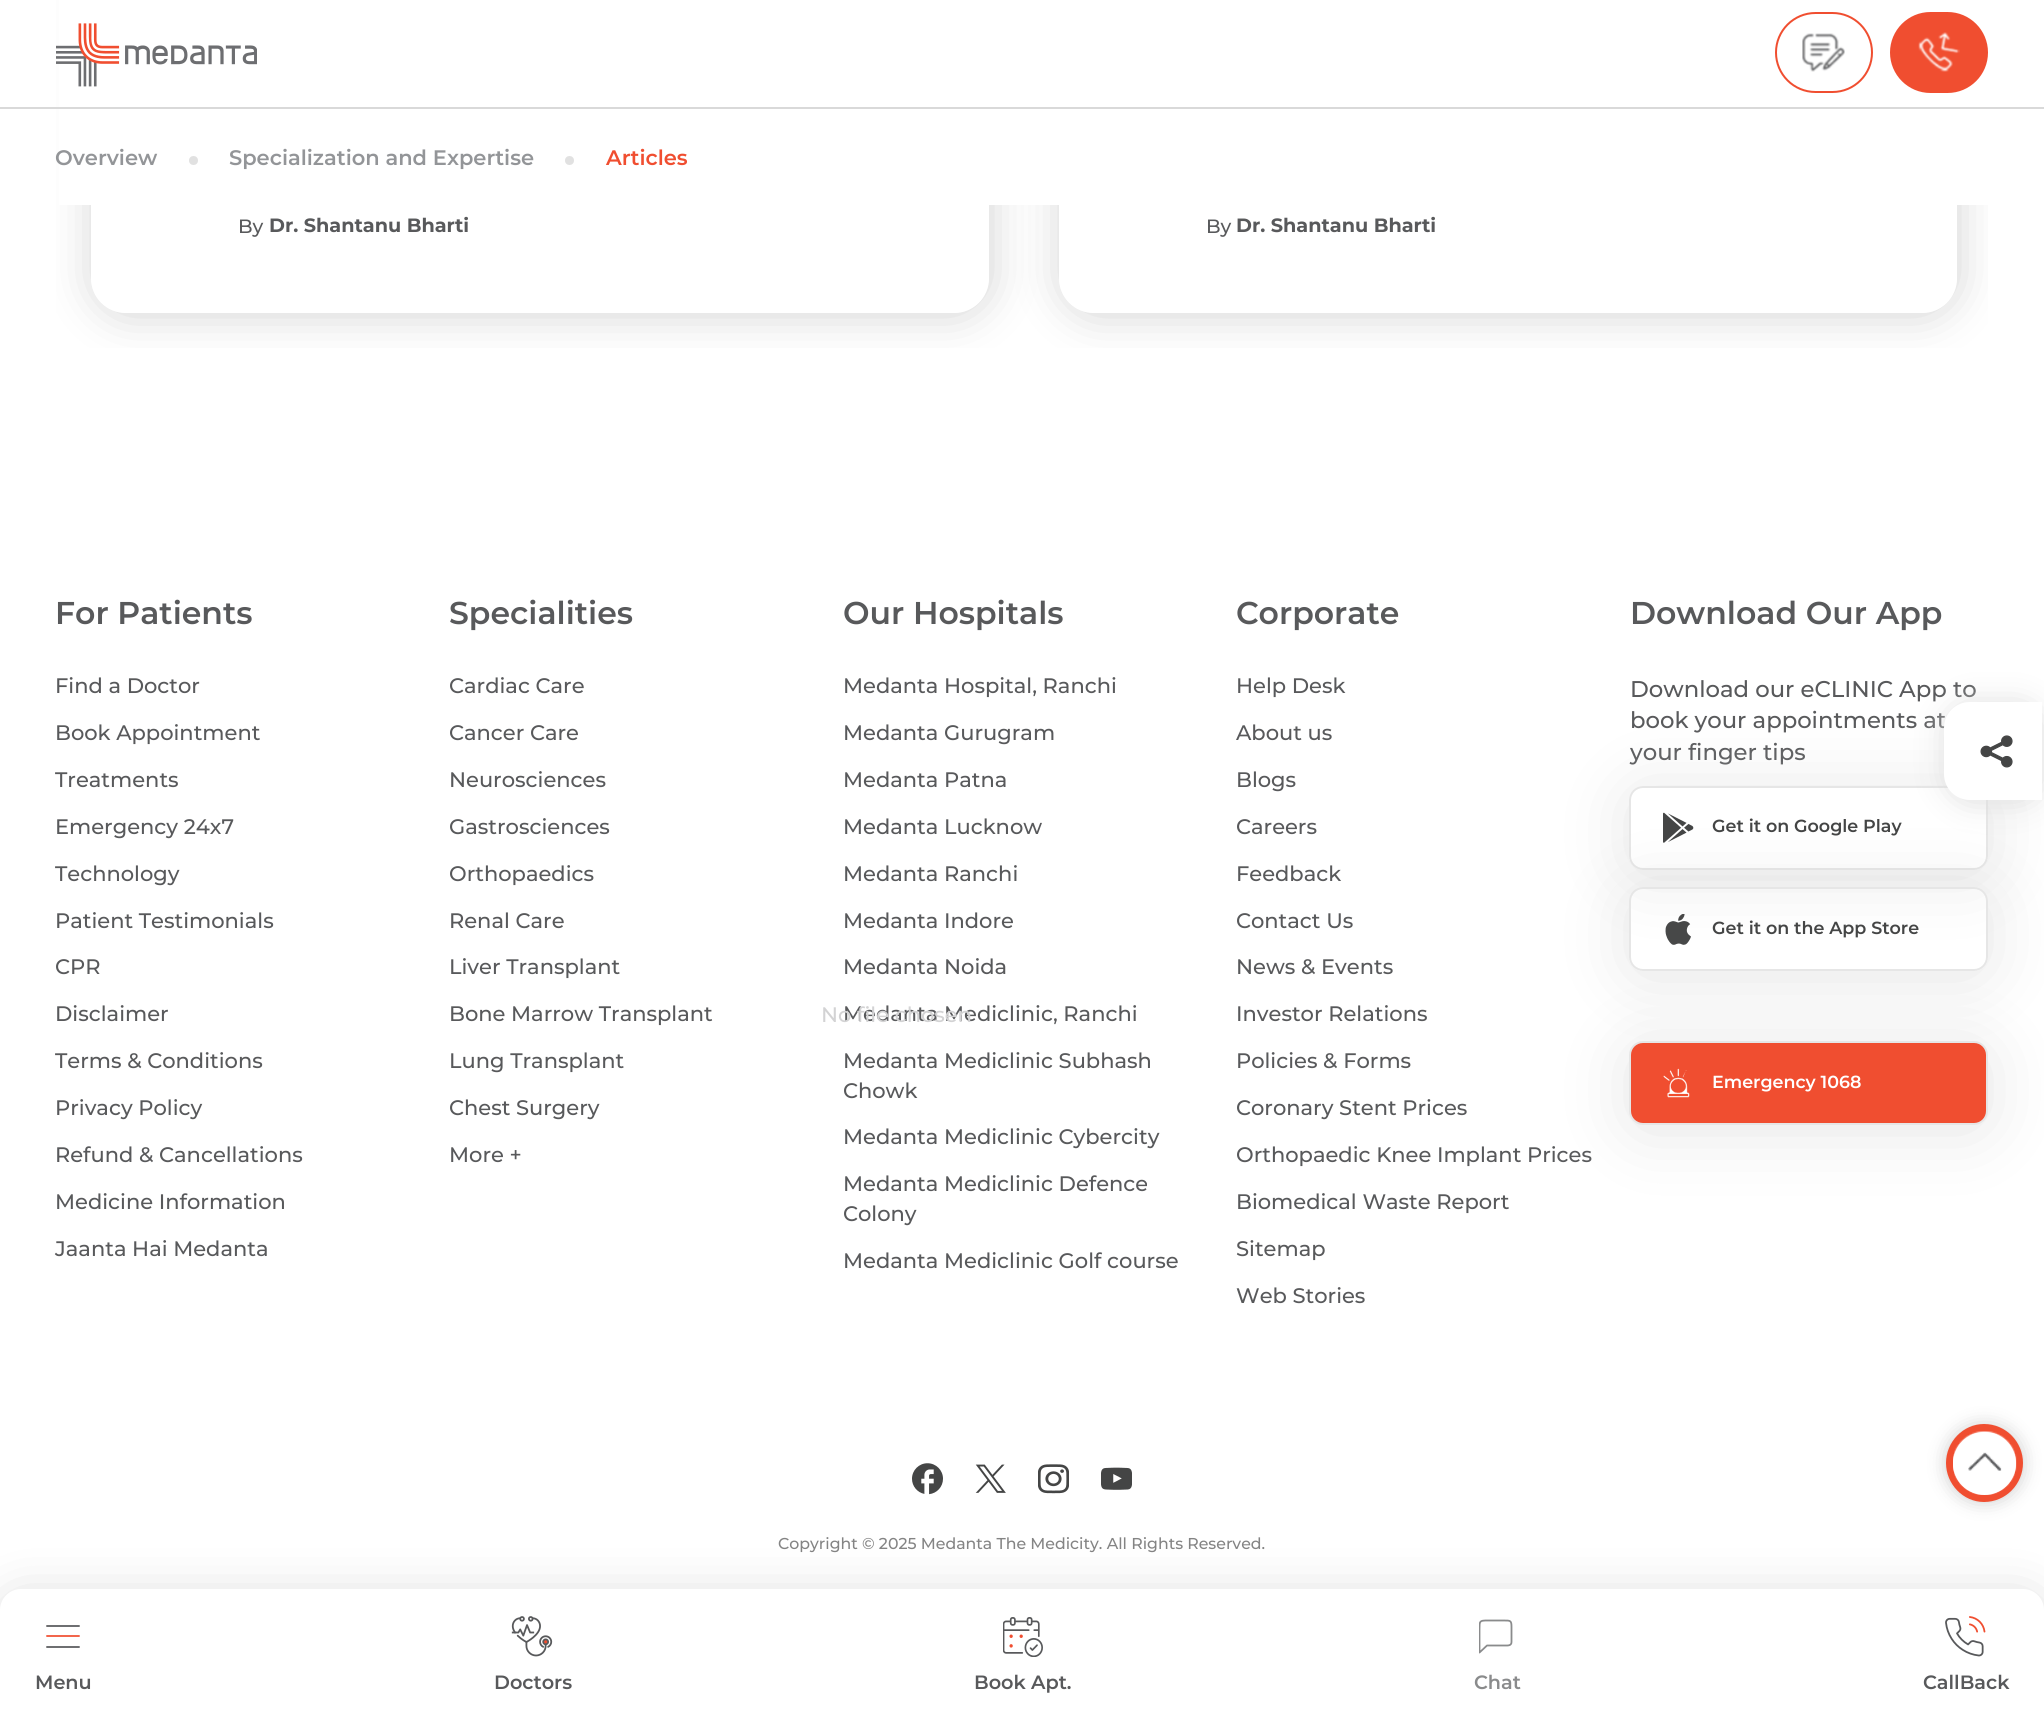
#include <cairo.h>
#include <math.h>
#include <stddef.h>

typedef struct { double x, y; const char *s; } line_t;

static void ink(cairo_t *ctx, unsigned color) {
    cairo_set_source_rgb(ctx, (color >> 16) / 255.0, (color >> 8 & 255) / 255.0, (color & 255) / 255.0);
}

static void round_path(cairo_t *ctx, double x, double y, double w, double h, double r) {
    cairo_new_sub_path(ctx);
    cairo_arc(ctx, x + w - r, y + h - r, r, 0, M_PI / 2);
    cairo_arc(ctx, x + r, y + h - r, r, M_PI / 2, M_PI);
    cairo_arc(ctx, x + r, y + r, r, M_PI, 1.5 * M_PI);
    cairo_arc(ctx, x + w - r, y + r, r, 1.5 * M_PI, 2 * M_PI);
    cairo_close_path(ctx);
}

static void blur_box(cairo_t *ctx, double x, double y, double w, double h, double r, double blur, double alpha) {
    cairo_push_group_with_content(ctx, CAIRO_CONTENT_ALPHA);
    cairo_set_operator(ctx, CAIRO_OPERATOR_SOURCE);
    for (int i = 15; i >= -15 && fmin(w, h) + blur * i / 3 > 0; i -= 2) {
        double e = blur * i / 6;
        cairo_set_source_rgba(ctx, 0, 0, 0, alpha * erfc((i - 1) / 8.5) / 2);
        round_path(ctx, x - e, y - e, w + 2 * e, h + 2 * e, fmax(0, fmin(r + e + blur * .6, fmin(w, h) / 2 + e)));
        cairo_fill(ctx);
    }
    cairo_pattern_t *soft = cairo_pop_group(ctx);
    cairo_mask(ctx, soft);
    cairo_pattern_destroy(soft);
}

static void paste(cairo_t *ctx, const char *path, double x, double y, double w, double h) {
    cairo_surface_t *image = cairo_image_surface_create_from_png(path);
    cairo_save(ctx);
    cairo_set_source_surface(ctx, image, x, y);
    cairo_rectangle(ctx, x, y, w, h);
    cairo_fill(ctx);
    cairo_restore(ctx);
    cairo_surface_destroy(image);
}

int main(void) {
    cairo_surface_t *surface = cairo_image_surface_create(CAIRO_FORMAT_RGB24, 2044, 1719);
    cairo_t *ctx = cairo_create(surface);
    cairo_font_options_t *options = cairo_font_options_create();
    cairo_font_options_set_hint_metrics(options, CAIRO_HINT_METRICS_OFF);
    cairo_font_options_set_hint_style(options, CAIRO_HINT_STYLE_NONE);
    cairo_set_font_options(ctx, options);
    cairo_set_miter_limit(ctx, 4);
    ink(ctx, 0xFFFFFF);
    cairo_paint(ctx);
    cairo_save(ctx);
    cairo_rectangle(ctx, 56, 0, 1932, 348);
    cairo_clip(ctx);
    cairo_set_fill_rule(ctx, CAIRO_FILL_RULE_EVEN_ODD);
    cairo_new_path(ctx);
    cairo_move_to(ctx, 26, 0);
    cairo_line_to(ctx, 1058, 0);
    cairo_line_to(ctx, 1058, 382);
    cairo_line_to(ctx, 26, 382);
    cairo_close_path(ctx);
    cairo_move_to(ctx, 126, -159);
    cairo_line_to(ctx, 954, -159);
    cairo_curve_to(ctx, 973.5, -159, 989, -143.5, 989, -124);
    cairo_line_to(ctx, 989, 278);
    cairo_curve_to(ctx, 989, 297.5, 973.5, 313, 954, 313);
    cairo_line_to(ctx, 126, 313);
    cairo_curve_to(ctx, 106.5, 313, 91, 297.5, 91, 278);
    cairo_line_to(ctx, 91, -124);
    cairo_curve_to(ctx, 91, -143.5, 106.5, -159, 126, -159);
    cairo_close_path(ctx);
    cairo_clip(ctx);
    ink(ctx, 0xD4D4D4);
    blur_box(ctx, 93, -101, 898, 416, 35, 22, 1);
    cairo_restore(ctx);
    cairo_save(ctx);
    cairo_rectangle(ctx, 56, 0, 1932, 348);
    cairo_clip(ctx);
    cairo_set_fill_rule(ctx, CAIRO_FILL_RULE_EVEN_ODD);
    cairo_new_path(ctx);
    cairo_move_to(ctx, 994, 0);
    cairo_line_to(ctx, 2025, 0);
    cairo_line_to(ctx, 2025, 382);
    cairo_line_to(ctx, 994, 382);
    cairo_close_path(ctx);
    cairo_move_to(ctx, 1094, -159);
    cairo_line_to(ctx, 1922, -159);
    cairo_curve_to(ctx, 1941.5, -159, 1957, -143.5, 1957, -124);
    cairo_line_to(ctx, 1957, 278);
    cairo_curve_to(ctx, 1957, 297.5, 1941.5, 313, 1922, 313);
    cairo_line_to(ctx, 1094, 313);
    cairo_curve_to(ctx, 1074.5, 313, 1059, 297.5, 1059, 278);
    cairo_line_to(ctx, 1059, -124);
    cairo_curve_to(ctx, 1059, -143.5, 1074.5, -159, 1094, -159);
    cairo_close_path(ctx);
    cairo_clip(ctx);
    ink(ctx, 0xD4D4D4);
    blur_box(ctx, 1061, -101, 897, 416, 35, 22, 1);
    cairo_restore(ctx);
    ink(ctx, 0xFFFFFF);
    cairo_rectangle(ctx, 59, 0, 1929, 107);
    cairo_fill(ctx);
    ink(ctx, 0xD9D9D9);
    cairo_rectangle(ctx, 0, 107, 2044, 2);
    cairo_fill(ctx);
    paste(ctx, "media/1.png", 56, 23, 201, 64);
    round_path(ctx, 1776, 13, 96, 79, 39.5);
    ink(ctx, 0xF04E30);
    cairo_stroke(ctx);
    paste(ctx, "media/2.png", 1802, 33, 43, 39);
    round_path(ctx, 1891, 13, 96, 79, 39.5);
    cairo_fill_preserve(ctx);
    cairo_stroke(ctx);
    paste(ctx, "media/3.png", 1918, 32, 42, 40);
    ink(ctx, 0xFFFFFF);
    cairo_rectangle(ctx, 59, 109, 1929, 96);
    cairo_fill(ctx);
    cairo_select_font_face(ctx, "Montserrat SemiBold", CAIRO_FONT_SLANT_NORMAL, CAIRO_FONT_WEIGHT_NORMAL);
    cairo_set_font_size(ctx, 21);
    ink(ctx, 0x939598);
    cairo_move_to(ctx, 55, 165);
    cairo_show_text(ctx, "Overview");
    ink(ctx, 0xE1E1E1);
    cairo_new_path(ctx);
    cairo_arc(ctx, 193.5, 160.5, 4.5, 0, 2 * M_PI);
    cairo_fill(ctx);
    ink(ctx, 0x939598);
    cairo_move_to(ctx, 229, 165);
    cairo_show_text(ctx, "Specialization and Expertise");
    ink(ctx, 0xE1E1E1);
    cairo_new_path(ctx);
    cairo_arc(ctx, 569.5, 160.5, 4.5, 0, 2 * M_PI);
    cairo_fill(ctx);
    ink(ctx, 0xF04E30);
    cairo_move_to(ctx, 606, 165);
    cairo_show_text(ctx, "Articles");
    cairo_select_font_face(ctx, "Montserrat Medium", CAIRO_FONT_SLANT_NORMAL, CAIRO_FONT_WEIGHT_NORMAL);
    cairo_set_font_size(ctx, 19.25);
    ink(ctx, 0x58595B);
    cairo_move_to(ctx, 238, 233);
    cairo_show_text(ctx, "By");
    cairo_select_font_face(ctx, "Montserrat", CAIRO_FONT_SLANT_NORMAL, CAIRO_FONT_WEIGHT_BOLD);
    cairo_move_to(ctx, 269, 232);
    cairo_show_text(ctx, "Dr. Shantanu Bharti");
    cairo_select_font_face(ctx, "Montserrat Medium", CAIRO_FONT_SLANT_NORMAL, CAIRO_FONT_WEIGHT_NORMAL);
    cairo_move_to(ctx, 1206, 233);
    cairo_show_text(ctx, "By");
    cairo_select_font_face(ctx, "Montserrat", CAIRO_FONT_SLANT_NORMAL, CAIRO_FONT_WEIGHT_BOLD);
    cairo_move_to(ctx, 1236, 232);
    cairo_show_text(ctx, "Dr. Shantanu Bharti");
    cairo_select_font_face(ctx, "Montserrat SemiBold", CAIRO_FONT_SLANT_NORMAL, CAIRO_FONT_WEIGHT_NORMAL);
    cairo_set_font_size(ctx, 31.5);
    cairo_move_to(ctx, 55, 624);
    cairo_show_text(ctx, "For Patients");
    cairo_select_font_face(ctx, "Montserrat Medium", CAIRO_FONT_SLANT_NORMAL, CAIRO_FONT_WEIGHT_NORMAL);
    cairo_set_font_size(ctx, 21);
    {
        static const line_t items[] = {
            {55, 693, "Find a Doctor"},
            {55, 740, "Book Appointment"},
            {55, 787, "Treatments"},
            {55, 834, "Emergency 24x7"},
            {55, 881, "Technology"},
            {55, 928, "Patient Testimonials"},
            {55, 974, "CPR"},
            {55, 1021, "Disclaimer"},
            {55, 1068, "Terms & Conditions"},
            {55, 1115, "Privacy Policy"},
            {55, 1162, "Refund & Cancellations"},
            {55, 1209, "Medicine Information"},
            {55, 1256, "Jaanta Hai Medanta"},
        };
        for (size_t i = 0; i < sizeof items / sizeof *items; i++) {
            cairo_move_to(ctx, items[i].x, items[i].y);
            cairo_show_text(ctx, items[i].s);
        }
    }
    cairo_select_font_face(ctx, "Montserrat SemiBold", CAIRO_FONT_SLANT_NORMAL, CAIRO_FONT_WEIGHT_NORMAL);
    cairo_set_font_size(ctx, 31.5);
    cairo_move_to(ctx, 449, 624);
    cairo_show_text(ctx, "Specialities");
    cairo_select_font_face(ctx, "Montserrat Medium", CAIRO_FONT_SLANT_NORMAL, CAIRO_FONT_WEIGHT_NORMAL);
    cairo_set_font_size(ctx, 21);
    {
        static const line_t items[] = {
            {449, 693, "Cardiac Care"},
            {449, 740, "Cancer Care"},
            {449, 787, "Neurosciences"},
            {449, 834, "Gastrosciences"},
            {449, 881, "Orthopaedics"},
            {449, 928, "Renal Care"},
            {449, 974, "Liver Transplant"},
            {449, 1021, "Bone Marrow Transplant"},
            {449, 1068, "Lung Transplant"},
            {449, 1115, "Chest Surgery"},
            {449, 1162, "More +"},
        };
        for (size_t i = 0; i < sizeof items / sizeof *items; i++) {
            cairo_move_to(ctx, items[i].x, items[i].y);
            cairo_show_text(ctx, items[i].s);
        }
    }
    cairo_select_font_face(ctx, "Montserrat SemiBold", CAIRO_FONT_SLANT_NORMAL, CAIRO_FONT_WEIGHT_NORMAL);
    cairo_set_font_size(ctx, 31.5);
    cairo_move_to(ctx, 843, 624);
    cairo_show_text(ctx, "Our Hospitals");
    cairo_select_font_face(ctx, "Montserrat Medium", CAIRO_FONT_SLANT_NORMAL, CAIRO_FONT_WEIGHT_NORMAL);
    cairo_set_font_size(ctx, 21);
    {
        static const line_t items[] = {
            {843, 693, "Medanta Hospital, Ranchi"},
            {843, 740, "Medanta Gurugram"},
            {843, 787, "Medanta Patna"},
            {843, 834, "Medanta Lucknow"},
            {843, 881, "Medanta Ranchi"},
            {843, 928, "Medanta Indore"},
            {843, 974, "Medanta Noida"},
            {843, 1021, "Medanta Mediclinic, Ranchi"},
            {843, 1068, "Medanta Mediclinic Subhash"},
            {843, 1098, "Chowk"},
            {843, 1144, "Medanta Mediclinic Cybercity"},
            {843, 1191, "Medanta Mediclinic Defence"},
            {843, 1221, "Colony"},
            {843, 1268, "Medanta Mediclinic Golf course"},
        };
        for (size_t i = 0; i < sizeof items / sizeof *items; i++) {
            cairo_move_to(ctx, items[i].x, items[i].y);
            cairo_show_text(ctx, items[i].s);
        }
    }
    cairo_select_font_face(ctx, "Montserrat SemiBold", CAIRO_FONT_SLANT_NORMAL, CAIRO_FONT_WEIGHT_NORMAL);
    cairo_set_font_size(ctx, 31.5);
    cairo_move_to(ctx, 1236, 624);
    cairo_show_text(ctx, "Corporate");
    cairo_select_font_face(ctx, "Montserrat Medium", CAIRO_FONT_SLANT_NORMAL, CAIRO_FONT_WEIGHT_NORMAL);
    cairo_set_font_size(ctx, 21);
    {
        static const line_t items[] = {
            {1236, 693, "Help Desk"},
            {1236, 740, "About us"},
            {1236, 787, "Blogs"},
            {1236, 834, "Careers"},
            {1236, 881, "Feedback"},
            {1236, 928, "Contact Us"},
            {1236, 974, "News & Events"},
            {1236, 1021, "Investor Relations"},
            {1236, 1068, "Policies & Forms"},
            {1236, 1115, "Coronary Stent Prices"},
            {1236, 1162, "Orthopaedic Knee Implant Prices"},
            {1236, 1209, "Biomedical Waste Report"},
            {1236, 1256, "Sitemap"},
            {1236, 1303, "Web Stories"},
        };
        for (size_t i = 0; i < sizeof items / sizeof *items; i++) {
            cairo_move_to(ctx, items[i].x, items[i].y);
            cairo_show_text(ctx, items[i].s);
        }
    }
    cairo_select_font_face(ctx, "Montserrat SemiBold", CAIRO_FONT_SLANT_NORMAL, CAIRO_FONT_WEIGHT_NORMAL);
    cairo_set_font_size(ctx, 31.5);
    cairo_move_to(ctx, 1630, 624);
    cairo_show_text(ctx, "Download Our App");
    cairo_select_font_face(ctx, "Montserrat Medium", CAIRO_FONT_SLANT_NORMAL, CAIRO_FONT_WEIGHT_NORMAL);
    cairo_set_font_size(ctx, 22.75);
    {
        static const line_t items[] = {
            {1630, 697, "Download our eCLINIC App to"},
            {1630, 728, "book your appointments at"},
            {1630, 760, "your finger tips"},
        };
        for (size_t i = 0; i < sizeof items / sizeof *items; i++) {
            cairo_move_to(ctx, items[i].x, items[i].y);
            cairo_show_text(ctx, items[i].s);
        }
    }
    cairo_save(ctx);
    cairo_set_fill_rule(ctx, CAIRO_FILL_RULE_EVEN_ODD);
    cairo_new_path(ctx);
    cairo_move_to(ctx, 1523, 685);
    cairo_line_to(ctx, 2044, 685);
    cairo_line_to(ctx, 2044, 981);
    cairo_line_to(ctx, 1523, 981);
    cairo_close_path(ctx);
    cairo_move_to(ctx, 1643, 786);
    cairo_line_to(ctx, 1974, 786);
    cairo_curve_to(ctx, 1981.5, 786, 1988, 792.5, 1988, 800);
    cairo_line_to(ctx, 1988, 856);
    cairo_curve_to(ctx, 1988, 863.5, 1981.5, 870, 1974, 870);
    cairo_line_to(ctx, 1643, 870);
    cairo_curve_to(ctx, 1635.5, 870, 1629, 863.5, 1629, 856);
    cairo_line_to(ctx, 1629, 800);
    cairo_curve_to(ctx, 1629, 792.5, 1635.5, 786, 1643, 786);
    cairo_close_path(ctx);
    cairo_clip(ctx);
    ink(ctx, 0xCCCCCC);
    blur_box(ctx, 1629, 791, 359, 84, 14, 35, 0.5);
    cairo_restore(ctx);
    round_path(ctx, 1630, 787, 357, 82, 13);
    ink(ctx, 0xE6E6E6);
    cairo_stroke(ctx);
    cairo_save(ctx);
    cairo_set_fill_rule(ctx, CAIRO_FILL_RULE_EVEN_ODD);
    cairo_new_path(ctx);
    cairo_move_to(ctx, 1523, 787);
    cairo_line_to(ctx, 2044, 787);
    cairo_line_to(ctx, 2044, 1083);
    cairo_line_to(ctx, 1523, 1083);
    cairo_close_path(ctx);
    cairo_move_to(ctx, 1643, 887);
    cairo_line_to(ctx, 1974, 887);
    cairo_curve_to(ctx, 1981.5, 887, 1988, 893.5, 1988, 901);
    cairo_line_to(ctx, 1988, 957);
    cairo_curve_to(ctx, 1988, 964.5, 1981.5, 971, 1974, 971);
    cairo_line_to(ctx, 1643, 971);
    cairo_curve_to(ctx, 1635.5, 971, 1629, 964.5, 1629, 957);
    cairo_line_to(ctx, 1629, 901);
    cairo_curve_to(ctx, 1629, 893.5, 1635.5, 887, 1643, 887);
    cairo_close_path(ctx);
    cairo_clip(ctx);
    ink(ctx, 0xCCCCCC);
    blur_box(ctx, 1629, 893, 359, 84, 14, 35, 0.5);
    cairo_restore(ctx);
    paste(ctx, "media/4.png", 1663, 812, 31, 31);
    cairo_select_font_face(ctx, "Montserrat SemiBold", CAIRO_FONT_SLANT_NORMAL, CAIRO_FONT_WEIGHT_NORMAL);
    cairo_set_font_size(ctx, 17.5);
    ink(ctx, 0x444545);
    cairo_move_to(ctx, 1712, 832);
    cairo_show_text(ctx, "Get it on Google Play");
    round_path(ctx, 1630, 888, 357, 82, 13);
    ink(ctx, 0xE6E6E6);
    cairo_stroke(ctx);
    ink(ctx, 0xCCCCCC);
    blur_box(ctx, 1629, 1047, 359, 84, 14, 35, 0.5);
    paste(ctx, "media/5.png", 1665, 914, 26, 31);
    ink(ctx, 0x444545);
    cairo_move_to(ctx, 1712, 934);
    cairo_show_text(ctx, "Get it on the App Store");
    ink(ctx, 0xF04E30);
    round_path(ctx, 1630, 1042, 357, 82, 13);
    cairo_fill_preserve(ctx);
    ink(ctx, 0xE6E6E6);
    cairo_stroke(ctx);
    paste(ctx, "media/6.png", 1663, 1068, 27, 30);
    ink(ctx, 0xFFFFFF);
    cairo_move_to(ctx, 1712, 1088);
    cairo_show_text(ctx, "Emergency 1068");
    paste(ctx, "media/7.png", 912, 1463, 31, 32);
    paste(ctx, "media/8.png", 975, 1464, 31, 29);
    paste(ctx, "media/9.png", 1038, 1464, 31, 30);
    paste(ctx, "media/10.png", 1101, 1467, 31, 23);
    cairo_select_font_face(ctx, "Montserrat Medium", CAIRO_FONT_SLANT_NORMAL, CAIRO_FONT_WEIGHT_NORMAL);
    cairo_set_font_size(ctx, 15.75);
    ink(ctx, 0x848484);
    cairo_move_to(ctx, 778, 1549);
    cairo_show_text(ctx, "Copyright © 2025 Medanta The Medicity. All Rights Reserved.");
    ink(ctx, 0xDDDDDD);
    blur_box(ctx, 1946, 704, 98, 98, 26, 15, 1);
    ink(ctx, 0xFFFFFF);
    cairo_new_path(ctx);
    cairo_move_to(ctx, 1970, 702);
    cairo_line_to(ctx, 2042, 702);
    cairo_line_to(ctx, 2042, 800);
    cairo_line_to(ctx, 1970, 800);
    cairo_curve_to(ctx, 1955.5, 800, 1944, 788.5, 1944, 774);
    cairo_line_to(ctx, 1944, 728);
    cairo_curve_to(ctx, 1944, 713.5, 1955.5, 702, 1970, 702);
    cairo_close_path(ctx);
    cairo_fill(ctx);
    paste(ctx, "media/11.png", 1980, 735, 33, 33);
    cairo_set_font_size(ctx, 21);
    ink(ctx, 0xD3D3D4);
    cairo_move_to(ctx, 821, 1022);
    cairo_show_text(ctx, "No file chosen");
    ink(ctx, 0x000000);
    blur_box(ctx, 1946, 1425, 77, 77, 38.5, 9, 0.2);
    ink(ctx, 0xF04E30);
    cairo_new_path(ctx);
    cairo_move_to(ctx, 1984, 1463);
    cairo_line_to(ctx, 1984, 1424);
    cairo_curve_to(ctx, 2006, 1424, 2023, 1442, 2023, 1463);
    cairo_curve_to(ctx, 2023, 1484, 2006, 1502, 1984, 1502);
    cairo_curve_to(ctx, 1963, 1502, 1946, 1484, 1946, 1463);
    cairo_curve_to(ctx, 1946, 1442, 1963, 1424, 1984, 1424);
    cairo_close_path(ctx);
    cairo_fill(ctx);
    ink(ctx, 0xFFFFFF);
    cairo_arc(ctx, 1984.5, 1463.5, 31.5, 0, 2 * M_PI);
    cairo_fill(ctx);
    paste(ctx, "media/12.png", 1953, 1431, 64, 64);
    ink(ctx, 0x000000);
    blur_box(ctx, 0, 1596, 2044, 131, 21, 26, 0.14);
    ink(ctx, 0xFFFFFF);
    cairo_new_path(ctx);
    cairo_move_to(ctx, 21, 1589);
    cairo_line_to(ctx, 2023, 1589);
    cairo_curve_to(ctx, 2034.5, 1589, 2044, 1598.5, 2044, 1610);
    cairo_line_to(ctx, 2044, 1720);
    cairo_line_to(ctx, 0, 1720);
    cairo_line_to(ctx, 0, 1610);
    cairo_curve_to(ctx, 0, 1598.5, 9.5, 1589, 21, 1589);
    cairo_close_path(ctx);
    cairo_fill(ctx);
    cairo_new_path(ctx);
    cairo_move_to(ctx, 47, 1636);
    cairo_line_to(ctx, 79, 1636);
    ink(ctx, 0xF04E30);
    cairo_set_line_width(ctx, 1.8);
    cairo_set_line_cap(ctx, CAIRO_LINE_CAP_ROUND);
    cairo_set_line_join(ctx, CAIRO_LINE_JOIN_ROUND);
    cairo_stroke(ctx);
    cairo_new_path(ctx);
    cairo_move_to(ctx, 47, 1626);
    cairo_line_to(ctx, 79, 1626);
    cairo_move_to(ctx, 47, 1647);
    cairo_line_to(ctx, 79, 1647);
    ink(ctx, 0x58595B);
    cairo_stroke(ctx);
    cairo_select_font_face(ctx, "Montserrat SemiBold", CAIRO_FONT_SLANT_NORMAL, CAIRO_FONT_WEIGHT_NORMAL);
    cairo_set_font_size(ctx, 19.25);
    cairo_move_to(ctx, 35, 1689);
    cairo_show_text(ctx, "Menu");
    paste(ctx, "media/13.png", 511, 1616, 42, 41);
    cairo_move_to(ctx, 494, 1689);
    cairo_show_text(ctx, "Doctors");
    paste(ctx, "media/14.png", 1003, 1617, 40, 40);
    cairo_move_to(ctx, 974, 1689);
    cairo_show_text(ctx, "Book Apt.");
    cairo_save(ctx);
    cairo_rectangle(ctx, 1479, 1619, 35, 35);
    cairo_clip(ctx);
    cairo_new_path(ctx);
    cairo_move_to(ctx, 1511.5, 1642);
    cairo_curve_to(ctx, 1511.5, 1646, 1507.5, 1645.5, 1504.5, 1645.5);
    cairo_line_to(ctx, 1487, 1645.5);
    cairo_line_to(ctx, 1479.5, 1652.5);
    cairo_line_to(ctx, 1479.5, 1629);
    cairo_curve_to(ctx, 1479.5, 1621, 1479.5, 1620.5, 1487.5, 1620.5);
    cairo_line_to(ctx, 1504, 1620.5);
    cairo_curve_to(ctx, 1510.5, 1620.5, 1511.5, 1620.5, 1511.5, 1627);
    cairo_close_path(ctx);
    ink(ctx, 0x8A8B8C);
    cairo_stroke(ctx);
    cairo_restore(ctx);
    ink(ctx, 0x8A8B8C);
    cairo_move_to(ctx, 1474, 1689);
    cairo_show_text(ctx, "Chat");
    paste(ctx, "media/15.png", 1945, 1616, 41, 41);
    ink(ctx, 0x58595B);
    cairo_move_to(ctx, 1923, 1689);
    cairo_show_text(ctx, "CallBack");
    cairo_surface_write_to_png(surface, "image.png");
    cairo_font_options_destroy(options);
    cairo_destroy(ctx);
    cairo_surface_destroy(surface);
    return 0;
}
